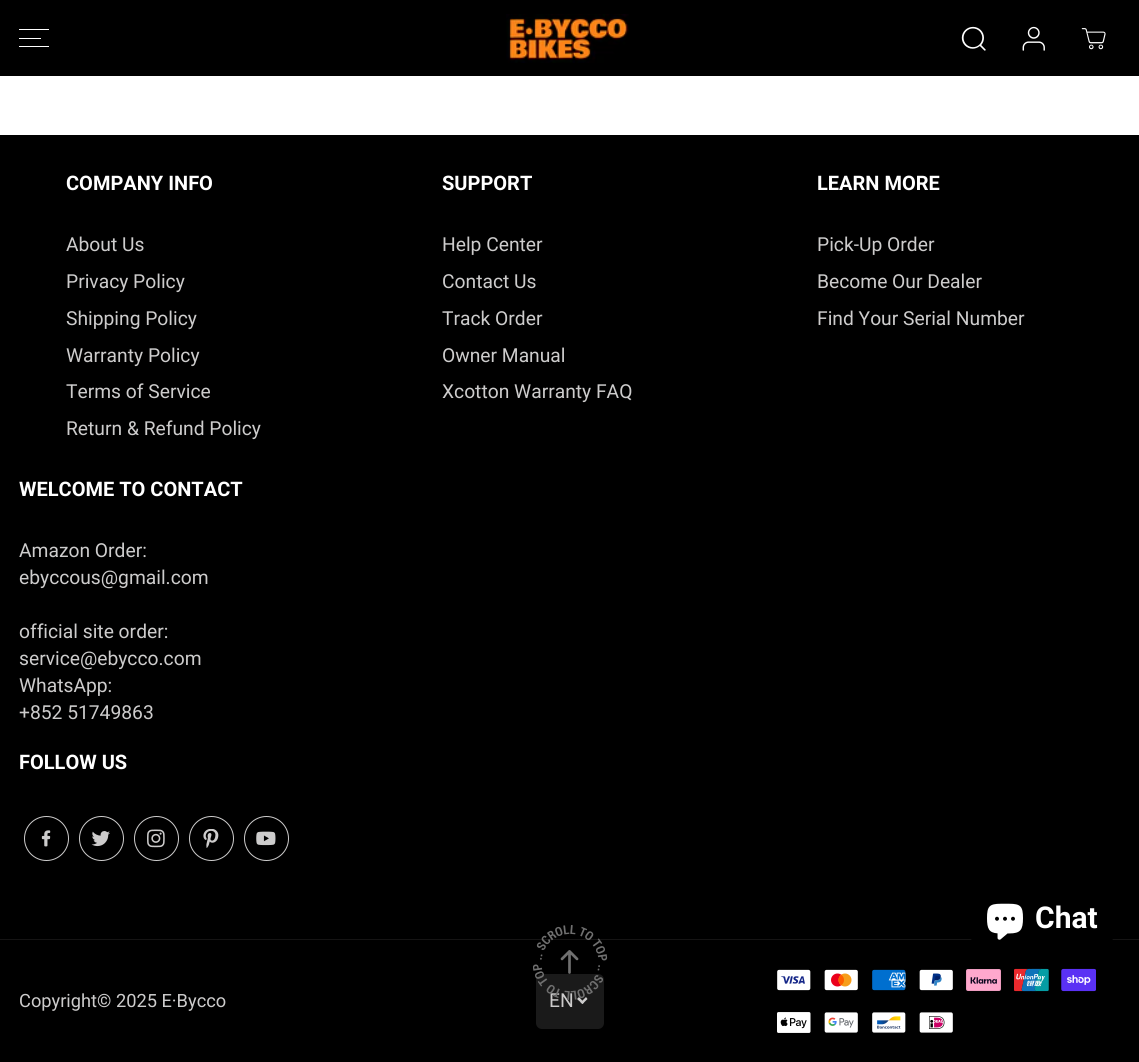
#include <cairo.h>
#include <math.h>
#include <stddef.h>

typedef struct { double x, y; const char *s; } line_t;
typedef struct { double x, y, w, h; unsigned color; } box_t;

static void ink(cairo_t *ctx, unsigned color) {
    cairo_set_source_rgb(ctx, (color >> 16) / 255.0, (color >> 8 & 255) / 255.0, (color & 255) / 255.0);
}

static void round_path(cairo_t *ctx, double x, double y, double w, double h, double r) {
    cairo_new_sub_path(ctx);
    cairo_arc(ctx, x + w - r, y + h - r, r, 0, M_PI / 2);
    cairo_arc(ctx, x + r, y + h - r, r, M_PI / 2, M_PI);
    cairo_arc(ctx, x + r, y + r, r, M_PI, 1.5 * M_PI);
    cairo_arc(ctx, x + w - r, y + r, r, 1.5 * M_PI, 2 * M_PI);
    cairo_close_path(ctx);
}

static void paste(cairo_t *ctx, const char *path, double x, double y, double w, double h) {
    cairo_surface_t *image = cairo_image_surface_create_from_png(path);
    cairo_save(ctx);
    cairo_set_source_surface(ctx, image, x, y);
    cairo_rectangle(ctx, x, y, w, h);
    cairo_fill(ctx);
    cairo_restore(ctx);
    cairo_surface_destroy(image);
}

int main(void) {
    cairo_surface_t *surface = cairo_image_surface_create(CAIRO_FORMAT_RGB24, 1139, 1062);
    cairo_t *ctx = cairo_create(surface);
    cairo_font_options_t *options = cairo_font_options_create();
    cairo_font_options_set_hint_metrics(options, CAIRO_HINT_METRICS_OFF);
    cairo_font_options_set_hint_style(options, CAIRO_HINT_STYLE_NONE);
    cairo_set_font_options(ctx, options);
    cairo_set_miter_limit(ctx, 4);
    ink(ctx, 0xFFFFFF);
    cairo_paint(ctx);
    {
        static const box_t items[] = {
            {0, 0, 1139, 76, 0x000000},
            {19, 38, 22, 1, 0xFFFFFF},
            {19, 29, 30, 1, 0xFFFFFF},
            {19, 46, 30, 1, 0xFFFFFF},
        };
        for (size_t i = 0; i < sizeof items / sizeof *items; i++) {
            ink(ctx, items[i].color);
            cairo_rectangle(ctx, items[i].x, items[i].y, items[i].w, items[i].h);
            cairo_fill(ctx);
        }
    }
    paste(ctx, "media/1.png", 506, 14, 123, 49);
    paste(ctx, "media/2.png", 961, 26, 25, 25);
    paste(ctx, "media/3.png", 1022, 26, 23, 25);
    paste(ctx, "media/4.png", 1081, 28, 25, 22);
    ink(ctx, 0x000000);
    cairo_rectangle(ctx, 0, 135, 1139, 927);
    cairo_fill(ctx);
    cairo_select_font_face(ctx, "Roboto", CAIRO_FONT_SLANT_NORMAL, CAIRO_FONT_WEIGHT_BOLD);
    cairo_set_font_size(ctx, 20);
    ink(ctx, 0xFFFFFF);
    cairo_move_to(ctx, 66, 190);
    cairo_show_text(ctx, "COMPANY INFO");
    cairo_select_font_face(ctx, "Roboto", CAIRO_FONT_SLANT_NORMAL, CAIRO_FONT_WEIGHT_NORMAL);
    cairo_set_font_size(ctx, 19.25);
    ink(ctx, 0xCDCCCC);
    {
        static const line_t items[] = {
            {66, 251, "About Us"},
            {66, 288, "Privacy Policy"},
            {66, 325, "Shipping Policy"},
            {66, 362, "Warranty Policy"},
            {66, 398, "Terms of Service"},
            {66, 435, "Return & Refund Policy"},
        };
        for (size_t i = 0; i < sizeof items / sizeof *items; i++) {
            cairo_move_to(ctx, items[i].x, items[i].y);
            cairo_show_text(ctx, items[i].s);
        }
    }
    cairo_select_font_face(ctx, "Roboto", CAIRO_FONT_SLANT_NORMAL, CAIRO_FONT_WEIGHT_BOLD);
    cairo_set_font_size(ctx, 20);
    ink(ctx, 0xFFFFFF);
    cairo_move_to(ctx, 442, 190);
    cairo_show_text(ctx, "SUPPORT");
    cairo_select_font_face(ctx, "Roboto", CAIRO_FONT_SLANT_NORMAL, CAIRO_FONT_WEIGHT_NORMAL);
    cairo_set_font_size(ctx, 19.25);
    ink(ctx, 0xCDCCCC);
    {
        static const line_t items[] = {
            {442, 251, "Help Center"},
            {442, 288, "Contact Us"},
            {442, 325, "Track Order"},
            {442, 362, "Owner Manual"},
            {442, 398, "Xcotton Warranty FAQ"},
        };
        for (size_t i = 0; i < sizeof items / sizeof *items; i++) {
            cairo_move_to(ctx, items[i].x, items[i].y);
            cairo_show_text(ctx, items[i].s);
        }
    }
    cairo_select_font_face(ctx, "Roboto", CAIRO_FONT_SLANT_NORMAL, CAIRO_FONT_WEIGHT_BOLD);
    cairo_set_font_size(ctx, 20);
    ink(ctx, 0xFFFFFF);
    cairo_move_to(ctx, 817, 190);
    cairo_show_text(ctx, "LEARN MORE");
    cairo_select_font_face(ctx, "Roboto", CAIRO_FONT_SLANT_NORMAL, CAIRO_FONT_WEIGHT_NORMAL);
    cairo_set_font_size(ctx, 19.25);
    ink(ctx, 0xCDCCCC);
    {
        static const line_t items[] = {
            {817, 251, "Pick-Up Order"},
            {817, 288, "Become Our Dealer"},
            {817, 325, "Find Your Serial Number"},
        };
        for (size_t i = 0; i < sizeof items / sizeof *items; i++) {
            cairo_move_to(ctx, items[i].x, items[i].y);
            cairo_show_text(ctx, items[i].s);
        }
    }
    cairo_select_font_face(ctx, "Roboto", CAIRO_FONT_SLANT_NORMAL, CAIRO_FONT_WEIGHT_BOLD);
    cairo_set_font_size(ctx, 20);
    ink(ctx, 0xFFFFFF);
    cairo_move_to(ctx, 19, 496);
    cairo_show_text(ctx, "WELCOME TO CONTACT");
    cairo_select_font_face(ctx, "Roboto", CAIRO_FONT_SLANT_NORMAL, CAIRO_FONT_WEIGHT_NORMAL);
    cairo_set_font_size(ctx, 19.25);
    ink(ctx, 0xCDCCCC);
    {
        static const line_t items[] = {
            {19, 557, "Amazon Order:"},
            {19, 584, "ebyccous@gmail.com"},
            {19, 638, "official site order:"},
            {19, 665, "service@ebycco.com"},
            {19, 692, "WhatsApp:"},
            {19, 719, "+852 51749863"},
        };
        for (size_t i = 0; i < sizeof items / sizeof *items; i++) {
            cairo_move_to(ctx, items[i].x, items[i].y);
            cairo_show_text(ctx, items[i].s);
        }
    }
    cairo_select_font_face(ctx, "Roboto", CAIRO_FONT_SLANT_NORMAL, CAIRO_FONT_WEIGHT_BOLD);
    cairo_set_font_size(ctx, 20);
    ink(ctx, 0xFFFFFF);
    cairo_move_to(ctx, 19, 769);
    cairo_show_text(ctx, "FOLLOW US");
    paste(ctx, "media/5.png", 41, 830, 10, 17);
    cairo_arc(ctx, 46.5, 838.5, 22, 0, 2 * M_PI);
    ink(ctx, 0xCDCCCC);
    cairo_set_line_width(ctx, 1);
    cairo_stroke(ctx);
    paste(ctx, "media/6.png", 91, 831, 19, 16);
    cairo_arc(ctx, 101.5, 838.5, 22, 0, 2 * M_PI);
    cairo_stroke(ctx);
    paste(ctx, "media/7.png", 147, 829, 18, 19);
    cairo_arc(ctx, 156.5, 838.5, 22, 0, 2 * M_PI);
    cairo_stroke(ctx);
    paste(ctx, "media/8.png", 203, 829, 16, 19);
    cairo_arc(ctx, 211.5, 838.5, 22, 0, 2 * M_PI);
    cairo_stroke(ctx);
    paste(ctx, "media/9.png", 256, 831, 20, 15);
    cairo_arc(ctx, 266.5, 838.5, 22, 0, 2 * M_PI);
    cairo_stroke(ctx);
    ink(ctx, 0x151414);
    cairo_rectangle(ctx, 0, 939, 1139, 1);
    cairo_fill(ctx);
    cairo_select_font_face(ctx, "Roboto", CAIRO_FONT_SLANT_NORMAL, CAIRO_FONT_WEIGHT_NORMAL);
    cairo_set_font_size(ctx, 18.25);
    ink(ctx, 0xCDCCCC);
    cairo_move_to(ctx, 19, 1007);
    cairo_show_text(ctx, "Copyright© 2025 E·Bycco");
    ink(ctx, 0x1A1A1A);
    round_path(ctx, 536, 974, 68, 55, 6);
    cairo_fill(ctx);
    cairo_set_font_size(ctx, 19.25);
    ink(ctx, 0xCDCCCC);
    cairo_move_to(ctx, 549, 1007);
    cairo_show_text(ctx, "EN");
    cairo_new_path(ctx);
    cairo_move_to(ctx, 586, 997);
    cairo_line_to(ctx, 587.5, 999);
    cairo_line_to(ctx, 582.5, 1004);
    cairo_line_to(ctx, 580.5, 1002.5);
    cairo_close_path(ctx);
    cairo_fill(ctx);
    cairo_new_path(ctx);
    cairo_move_to(ctx, 579, 997);
    cairo_line_to(ctx, 584, 1002.5);
    cairo_line_to(ctx, 582.5, 1004);
    cairo_line_to(ctx, 577, 999);
    cairo_close_path(ctx);
    cairo_fill(ctx);
    paste(ctx, "media/10.png", 777, 969, 34, 22);
    paste(ctx, "media/11.png", 824, 969, 34, 22);
    paste(ctx, "media/12.png", 872, 969, 34, 22);
    paste(ctx, "media/13.png", 919, 969, 34, 22);
    paste(ctx, "media/14.png", 966, 969, 35, 22);
    paste(ctx, "media/15.png", 1014, 968, 35, 24);
    paste(ctx, "media/16.png", 1061, 968, 35, 24);
    paste(ctx, "media/17.png", 777, 1012, 34, 21);
    paste(ctx, "media/18.png", 824, 1012, 34, 21);
    paste(ctx, "media/19.png", 872, 1012, 34, 21);
    paste(ctx, "media/20.png", 919, 1012, 34, 21);
    paste(ctx, "media/22.png", 560, 950, 19, 24);
    paste(ctx, "media/21.png", 533, 925, 75, 75);
    ink(ctx, 0x000000);
    round_path(ctx, 971, 881, 142, 75, 20);
    cairo_fill(ctx);
    paste(ctx, "media/23.png", 987, 903, 36, 37);
    cairo_select_font_face(ctx, "Roboto", CAIRO_FONT_SLANT_NORMAL, CAIRO_FONT_WEIGHT_BOLD);
    cairo_set_font_size(ctx, 30);
    ink(ctx, 0xFFFFFF);
    cairo_move_to(ctx, 1035, 928);
    cairo_show_text(ctx, "Chat");
    cairo_surface_write_to_png(surface, "image.png");
    cairo_font_options_destroy(options);
    cairo_destroy(ctx);
    cairo_surface_destroy(surface);
    return 0;
}
